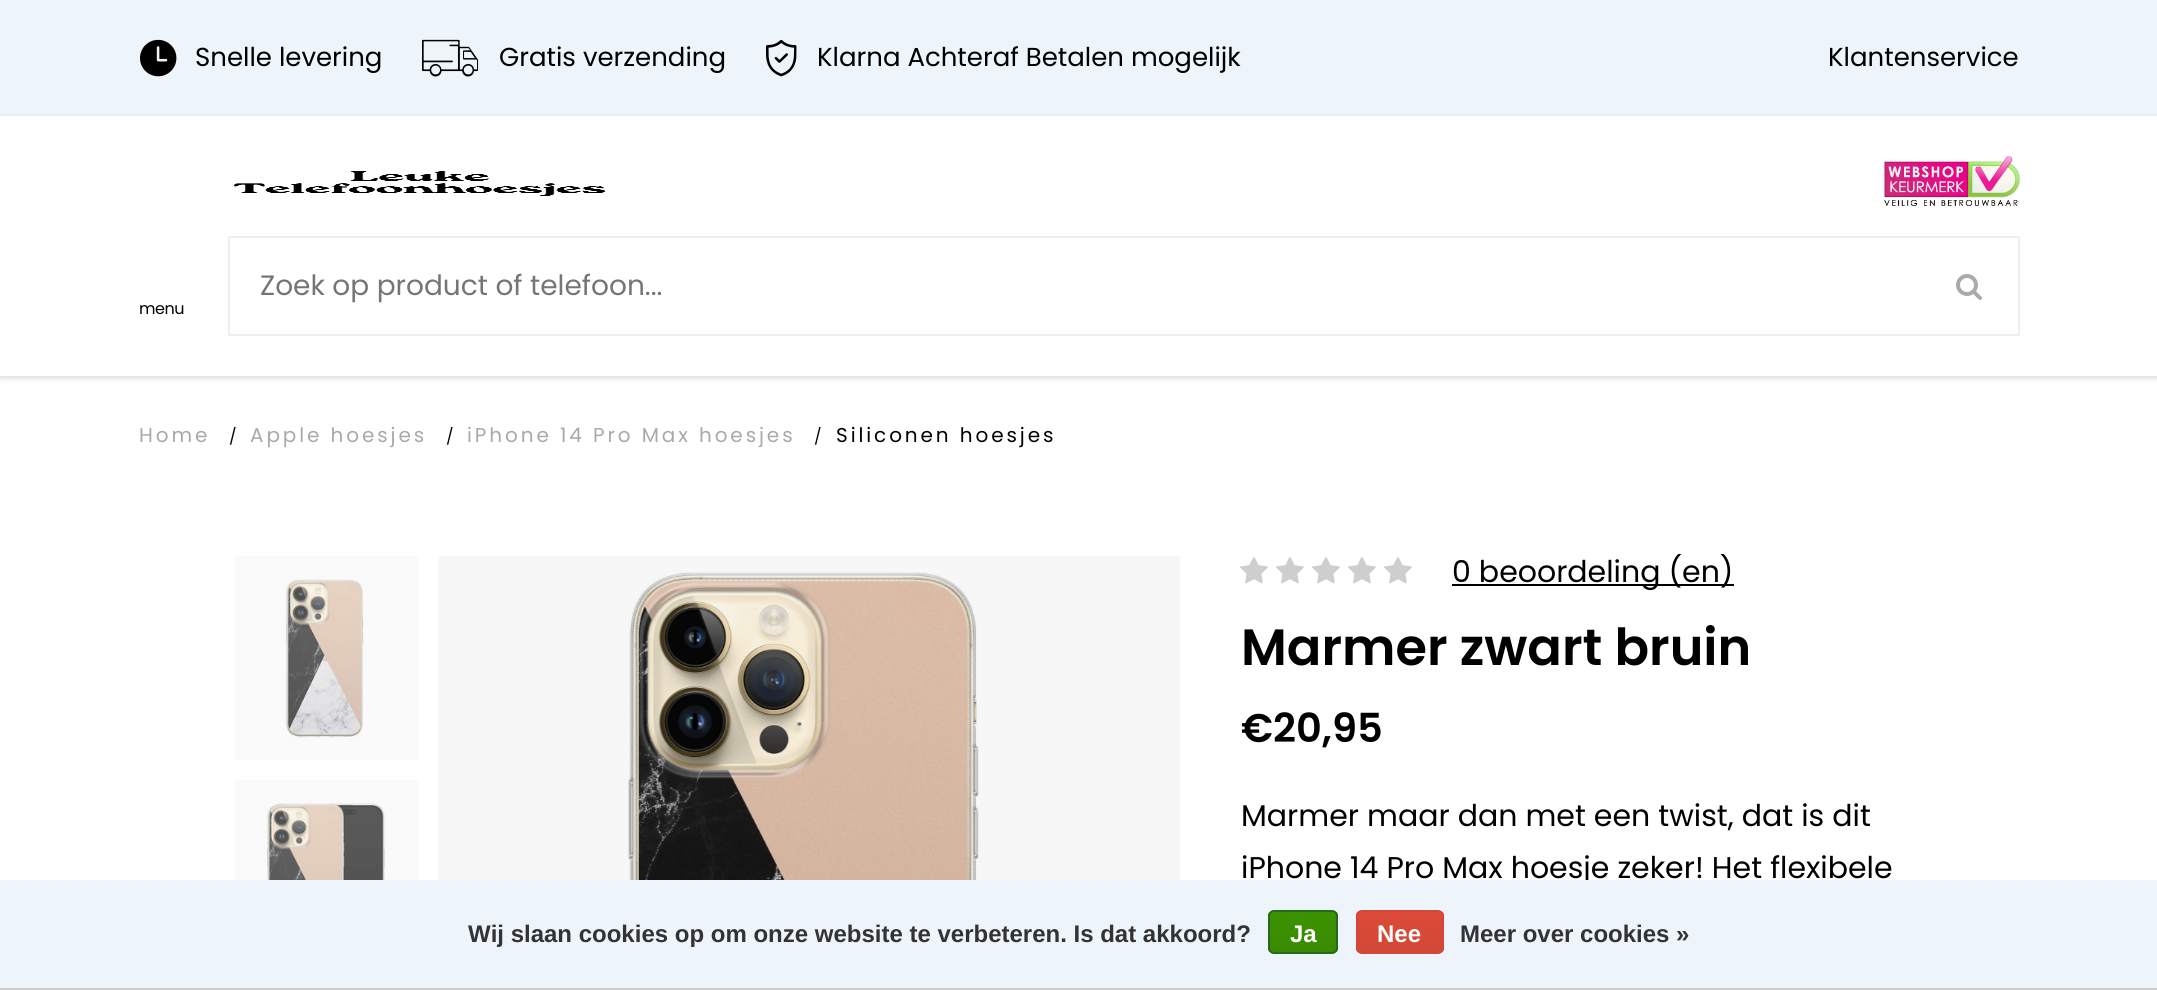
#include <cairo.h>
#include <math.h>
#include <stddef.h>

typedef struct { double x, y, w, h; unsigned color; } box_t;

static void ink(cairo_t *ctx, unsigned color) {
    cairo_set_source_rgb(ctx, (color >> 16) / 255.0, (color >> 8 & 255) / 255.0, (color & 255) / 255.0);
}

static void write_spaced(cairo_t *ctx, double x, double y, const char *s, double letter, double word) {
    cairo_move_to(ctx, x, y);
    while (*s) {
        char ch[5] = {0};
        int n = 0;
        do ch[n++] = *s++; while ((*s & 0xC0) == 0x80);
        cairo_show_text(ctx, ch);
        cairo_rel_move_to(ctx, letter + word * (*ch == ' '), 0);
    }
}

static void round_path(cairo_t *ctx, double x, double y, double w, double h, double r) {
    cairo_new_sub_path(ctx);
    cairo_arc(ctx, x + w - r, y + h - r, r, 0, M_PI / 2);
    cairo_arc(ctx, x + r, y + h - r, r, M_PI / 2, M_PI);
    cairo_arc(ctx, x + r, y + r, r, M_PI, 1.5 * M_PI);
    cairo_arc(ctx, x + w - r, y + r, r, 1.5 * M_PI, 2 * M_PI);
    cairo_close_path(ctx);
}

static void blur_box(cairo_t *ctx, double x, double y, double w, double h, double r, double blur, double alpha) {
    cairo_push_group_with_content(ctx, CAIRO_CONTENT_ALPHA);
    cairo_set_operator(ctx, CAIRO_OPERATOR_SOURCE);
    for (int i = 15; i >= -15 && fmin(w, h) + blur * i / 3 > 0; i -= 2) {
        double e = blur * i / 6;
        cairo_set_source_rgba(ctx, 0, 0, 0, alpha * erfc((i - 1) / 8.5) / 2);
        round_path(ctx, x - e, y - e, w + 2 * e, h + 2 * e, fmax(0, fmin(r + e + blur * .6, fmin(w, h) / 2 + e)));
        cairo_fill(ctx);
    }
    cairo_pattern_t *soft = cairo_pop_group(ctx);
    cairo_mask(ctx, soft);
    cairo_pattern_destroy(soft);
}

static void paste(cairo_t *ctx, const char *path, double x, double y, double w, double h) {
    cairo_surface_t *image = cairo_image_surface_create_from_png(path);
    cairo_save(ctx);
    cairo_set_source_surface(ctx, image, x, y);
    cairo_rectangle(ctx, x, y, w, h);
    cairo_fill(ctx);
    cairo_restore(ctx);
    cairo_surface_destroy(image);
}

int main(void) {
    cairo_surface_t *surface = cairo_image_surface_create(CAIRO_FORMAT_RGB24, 2157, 990);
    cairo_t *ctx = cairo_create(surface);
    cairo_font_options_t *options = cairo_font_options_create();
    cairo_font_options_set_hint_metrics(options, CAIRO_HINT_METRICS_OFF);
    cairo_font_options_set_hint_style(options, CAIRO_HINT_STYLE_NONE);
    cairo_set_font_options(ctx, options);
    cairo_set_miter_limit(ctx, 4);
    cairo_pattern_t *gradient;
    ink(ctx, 0xFFFFFF);
    cairo_paint(ctx);
    {
        static const box_t items[] = {
            {438, 556, 742, 324, 0xF7F7F7},
            {234, 780, 184, 100, 0xFAFAFA},
            {234, 556, 184, 204, 0xFAFAFA},
            {0, 0, 2157, 116, 0xEDF4FA},
        };
        for (size_t i = 0; i < sizeof items / sizeof *items; i++) {
            ink(ctx, items[i].color);
            cairo_rectangle(ctx, items[i].x, items[i].y, items[i].w, items[i].h);
            cairo_fill(ctx);
        }
    }
    paste(ctx, "media/1.png", 140, 39, 37, 38);
    cairo_select_font_face(ctx, "Poppins", CAIRO_FONT_SLANT_NORMAL, CAIRO_FONT_WEIGHT_NORMAL);
    cairo_set_font_size(ctx, 26);
    ink(ctx, 0x000000);
    cairo_move_to(ctx, 195, 66);
    cairo_show_text(ctx, "Snelle levering");
    paste(ctx, "media/2.png", 422, 39, 57, 38);
    cairo_move_to(ctx, 499, 66);
    cairo_show_text(ctx, "Gratis verzending");
    paste(ctx, "media/3.png", 766, 40, 31, 37);
    cairo_move_to(ctx, 817, 66);
    cairo_show_text(ctx, "Klarna Achteraf Betalen mogelijk");
    cairo_move_to(ctx, 1828, 66);
    cairo_show_text(ctx, "Klantenservice");
    cairo_save(ctx);
    cairo_set_fill_rule(ctx, CAIRO_FILL_RULE_EVEN_ODD);
    cairo_new_path(ctx);
    cairo_move_to(ctx, 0, 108);
    cairo_line_to(ctx, 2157, 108);
    cairo_line_to(ctx, 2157, 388);
    cairo_line_to(ctx, 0, 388);
    cairo_close_path(ctx);
    cairo_move_to(ctx, 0, 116);
    cairo_line_to(ctx, 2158, 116);
    cairo_line_to(ctx, 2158, 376);
    cairo_line_to(ctx, 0, 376);
    cairo_close_path(ctx);
    cairo_clip(ctx);
    ink(ctx, 0x000000);
    blur_box(ctx, 0, 118, 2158, 260, 0, 3, 0.15);
    cairo_restore(ctx);
    paste(ctx, "media/4.png", 234, 171, 372, 25);
    paste(ctx, "media/5.png", 1884, 156, 136, 50);
    cairo_rectangle(ctx, 229, 237, 1790, 98);
    ink(ctx, 0xEEEEEE);
    cairo_stroke(ctx);
    cairo_set_font_size(ctx, 28);
    ink(ctx, 0x757575);
    cairo_move_to(ctx, 260, 295);
    cairo_show_text(ctx, "Zoek op product of telefoon...");
    paste(ctx, "media/6.png", 1956, 274, 26, 26);
    cairo_set_font_size(ctx, 16);
    ink(ctx, 0x000000);
    write_spaced(ctx, 139, 314, "menu", -0.5, 0);
    cairo_set_font_size(ctx, 20);
    ink(ctx, 0xA9A9A9);
    write_spaced(ctx, 139, 442, "Home", 2.9, 0);
    cairo_set_font_size(ctx, 16);
    ink(ctx, 0x000000);
    cairo_move_to(ctx, 229, 442);
    cairo_show_text(ctx, "/");
    cairo_set_font_size(ctx, 20);
    ink(ctx, 0xA9A9A9);
    write_spaced(ctx, 250, 442, "Apple hoesjes", 2.9, 0);
    cairo_set_font_size(ctx, 16);
    ink(ctx, 0x000000);
    cairo_move_to(ctx, 446, 442);
    cairo_show_text(ctx, "/");
    cairo_set_font_size(ctx, 20);
    ink(ctx, 0xA9A9A9);
    write_spaced(ctx, 467, 442, "iPhone 14 Pro Max hoesjes", 2.9, 0);
    cairo_set_font_size(ctx, 16);
    ink(ctx, 0x000000);
    cairo_move_to(ctx, 814, 442);
    cairo_show_text(ctx, "/");
    cairo_set_font_size(ctx, 20);
    write_spaced(ctx, 836, 442, "Siliconen hoesjes", 2.9, 0);
    paste(ctx, "media/7.png", 283, 576, 84, 164);
    paste(ctx, "media/8.png", 265, 800, 120, 80);
    paste(ctx, "media/9.png", 628, 572, 351, 308);
    paste(ctx, "media/10.png", 1240, 557, 28, 27);
    paste(ctx, "media/10.png", 1276, 557, 28, 27);
    paste(ctx, "media/10.png", 1312, 557, 28, 27);
    paste(ctx, "media/10.png", 1348, 557, 28, 27);
    paste(ctx, "media/10.png", 1384, 557, 28, 27);
    cairo_rectangle(ctx, 1452, 584, 282, 2);
    cairo_fill(ctx);
    cairo_set_font_size(ctx, 30);
    cairo_move_to(ctx, 1452, 582);
    cairo_show_text(ctx, "0 beoordeling (en)");
    cairo_select_font_face(ctx, "Poppins SemiBold", CAIRO_FONT_SLANT_NORMAL, CAIRO_FONT_WEIGHT_NORMAL);
    cairo_set_font_size(ctx, 51);
    cairo_move_to(ctx, 1241, 665);
    cairo_show_text(ctx, "Marmer zwart bruin");
    cairo_set_font_size(ctx, 40);
    cairo_move_to(ctx, 1241, 742);
    cairo_show_text(ctx, "€20,95");
    cairo_select_font_face(ctx, "Poppins", CAIRO_FONT_SLANT_NORMAL, CAIRO_FONT_WEIGHT_NORMAL);
    cairo_set_font_size(ctx, 30);
    cairo_move_to(ctx, 1241, 826);
    cairo_show_text(ctx, "Marmer maar dan met een twist, dat is dit");
    cairo_move_to(ctx, 1241, 878);
    cairo_show_text(ctx, "iPhone 14 Pro Max hoesje zeker! Het flexibele");
    ink(ctx, 0xEDF4FA);
    cairo_rectangle(ctx, 0, 880, 2157, 108);
    cairo_fill(ctx);
    ink(ctx, 0xCCCCCC);
    cairo_rectangle(ctx, 0, 988, 2157, 2);
    cairo_fill(ctx);
    cairo_select_font_face(ctx, "Liberation Sans", CAIRO_FONT_SLANT_NORMAL, CAIRO_FONT_WEIGHT_BOLD);
    cairo_set_font_size(ctx, 24);
    ink(ctx, 0x333333);
    cairo_move_to(ctx, 468, 942);
    cairo_show_text(ctx, "Wij slaan cookies op om onze website te verbeteren. Is dat akkoord?");
    cairo_save(ctx);
    round_path(ctx, 1268, 910, 70, 44, 6);
    cairo_clip(ctx);
    gradient = cairo_pattern_create_linear(1303, 912, 1303, 952);
    cairo_pattern_add_color_stop_rgba(gradient, 0, 0.235, 0.576, 0, 1);
    cairo_pattern_add_color_stop_rgba(gradient, 1, 0.224, 0.541, 0, 1);
    cairo_set_source(ctx, gradient);
    cairo_pattern_destroy(gradient);
    cairo_rectangle(ctx, 1268, 912, 70, 40);
    cairo_fill(ctx);
    cairo_restore(ctx);
    round_path(ctx, 1269, 911, 68, 42, 5);
    ink(ctx, 0x29691D);
    cairo_stroke(ctx);
    ink(ctx, 0xFFFFFF);
    cairo_move_to(ctx, 1290, 942);
    cairo_show_text(ctx, "Ja");
    cairo_save(ctx);
    round_path(ctx, 1356, 910, 88, 44, 6);
    cairo_clip(ctx);
    gradient = cairo_pattern_create_linear(1400, 912, 1400, 952);
    cairo_pattern_add_color_stop_rgba(gradient, 0, 0.863, 0.29, 0.22, 1);
    cairo_pattern_add_color_stop_rgba(gradient, 1, 0.82, 0.282, 0.212, 1);
    cairo_set_source(ctx, gradient);
    cairo_pattern_destroy(gradient);
    cairo_rectangle(ctx, 1356, 912, 88, 40);
    cairo_fill(ctx);
    cairo_restore(ctx);
    round_path(ctx, 1357, 911, 86, 42, 5);
    ink(ctx, 0xD14836);
    cairo_stroke(ctx);
    ink(ctx, 0xFFFFFF);
    cairo_move_to(ctx, 1377, 942);
    cairo_show_text(ctx, "Nee");
    ink(ctx, 0x333333);
    cairo_move_to(ctx, 1460, 942);
    cairo_show_text(ctx, "Meer over cookies »");
    cairo_surface_write_to_png(surface, "image.png");
    cairo_font_options_destroy(options);
    cairo_destroy(ctx);
    cairo_surface_destroy(surface);
    return 0;
}
